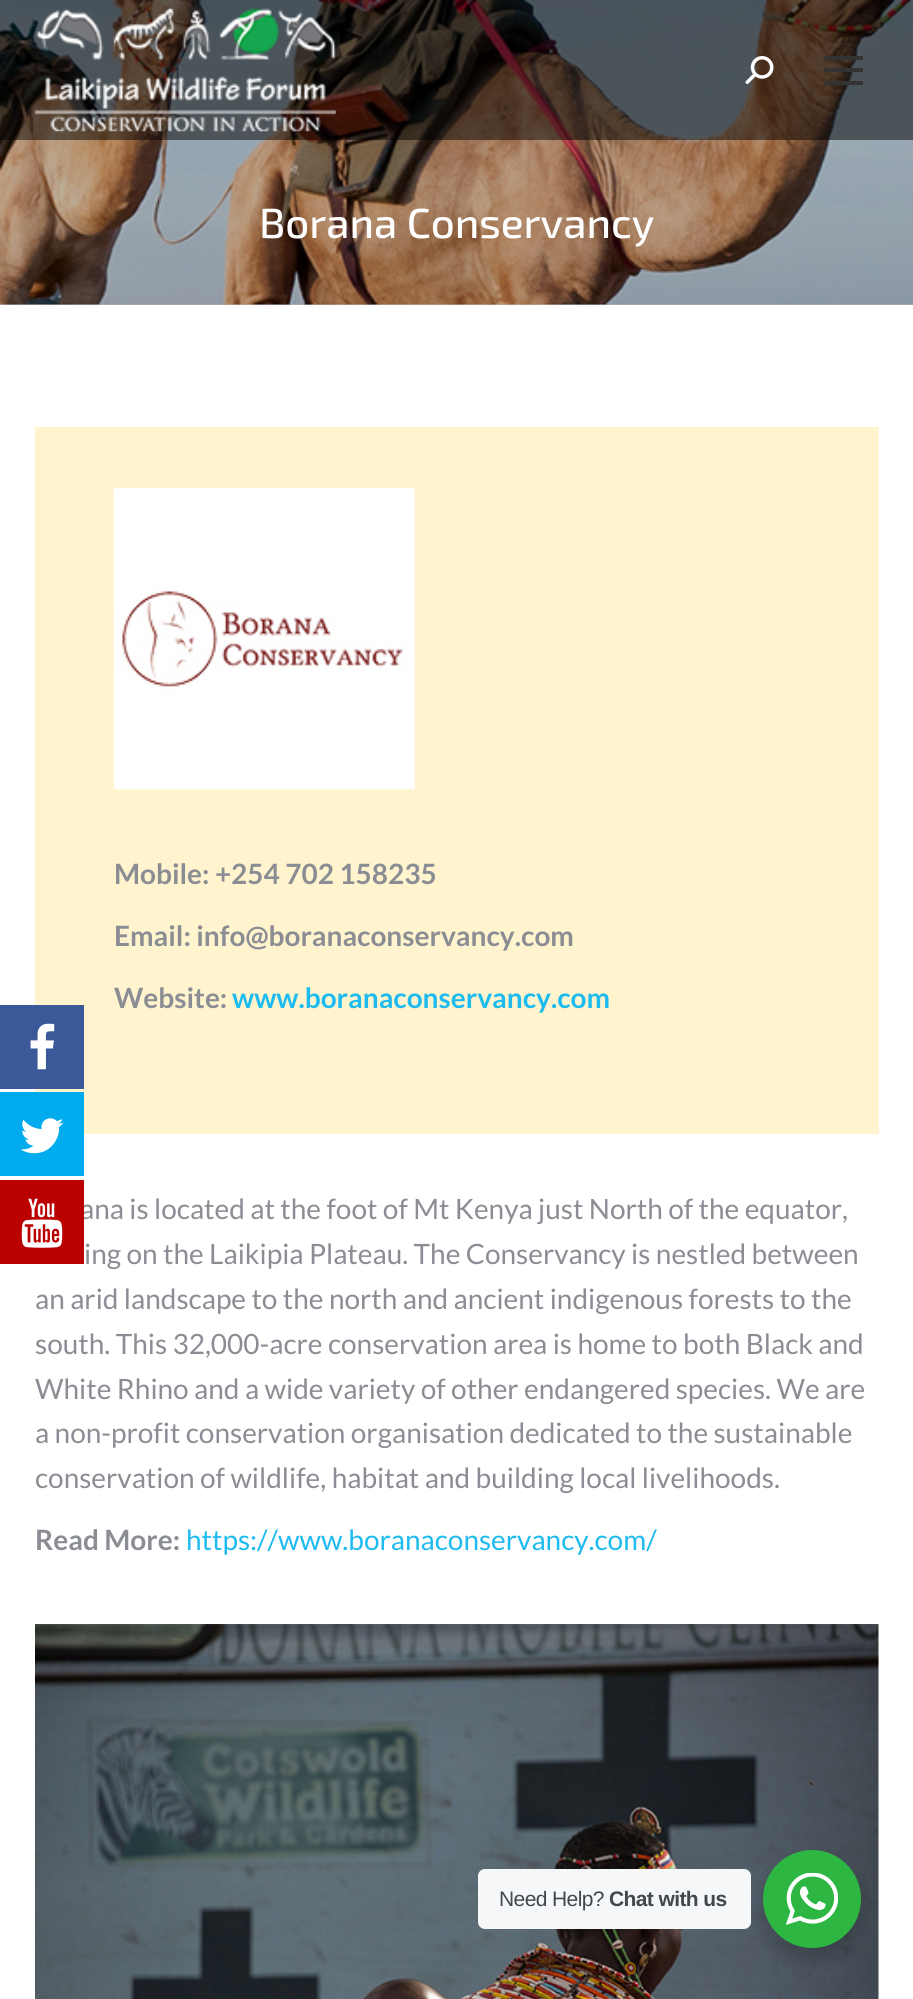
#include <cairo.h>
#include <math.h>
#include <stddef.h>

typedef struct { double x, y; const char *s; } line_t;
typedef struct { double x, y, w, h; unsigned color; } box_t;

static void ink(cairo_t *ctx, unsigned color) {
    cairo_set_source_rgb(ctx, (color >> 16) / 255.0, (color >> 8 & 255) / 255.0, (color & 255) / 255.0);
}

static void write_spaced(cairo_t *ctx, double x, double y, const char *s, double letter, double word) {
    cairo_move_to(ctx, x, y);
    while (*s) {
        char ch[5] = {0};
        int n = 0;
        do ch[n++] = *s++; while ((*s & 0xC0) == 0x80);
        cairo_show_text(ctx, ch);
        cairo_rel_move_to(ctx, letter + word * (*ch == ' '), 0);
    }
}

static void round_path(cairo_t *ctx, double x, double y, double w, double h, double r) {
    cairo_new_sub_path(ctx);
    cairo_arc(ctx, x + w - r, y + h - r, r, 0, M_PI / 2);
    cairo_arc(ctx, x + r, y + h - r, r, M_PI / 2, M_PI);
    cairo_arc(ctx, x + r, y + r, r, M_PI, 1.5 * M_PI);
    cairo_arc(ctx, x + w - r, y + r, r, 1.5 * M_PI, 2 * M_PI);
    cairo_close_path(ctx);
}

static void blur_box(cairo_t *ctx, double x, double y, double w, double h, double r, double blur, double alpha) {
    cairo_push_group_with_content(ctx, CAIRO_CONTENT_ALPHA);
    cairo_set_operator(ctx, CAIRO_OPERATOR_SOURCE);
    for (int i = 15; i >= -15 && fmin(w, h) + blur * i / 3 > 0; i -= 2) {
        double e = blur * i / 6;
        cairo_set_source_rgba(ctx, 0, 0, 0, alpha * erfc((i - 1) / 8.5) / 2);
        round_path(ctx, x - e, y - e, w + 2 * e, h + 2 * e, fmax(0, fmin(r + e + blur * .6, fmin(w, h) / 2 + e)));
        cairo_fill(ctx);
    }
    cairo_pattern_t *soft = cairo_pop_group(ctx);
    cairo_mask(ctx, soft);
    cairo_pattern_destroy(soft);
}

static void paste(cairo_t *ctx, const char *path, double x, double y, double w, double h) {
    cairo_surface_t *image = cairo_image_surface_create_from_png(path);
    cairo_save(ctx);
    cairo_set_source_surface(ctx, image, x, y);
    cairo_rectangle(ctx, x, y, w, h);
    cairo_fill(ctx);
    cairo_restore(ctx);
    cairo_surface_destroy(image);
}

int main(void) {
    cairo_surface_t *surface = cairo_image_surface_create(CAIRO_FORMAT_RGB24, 913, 1999);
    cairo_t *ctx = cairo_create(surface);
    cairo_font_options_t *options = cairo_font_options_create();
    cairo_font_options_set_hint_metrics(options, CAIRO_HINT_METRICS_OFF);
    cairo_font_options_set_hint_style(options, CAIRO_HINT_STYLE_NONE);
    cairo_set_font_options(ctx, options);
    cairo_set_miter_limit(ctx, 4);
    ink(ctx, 0xFFFFFF);
    cairo_paint(ctx);
    ink(ctx, 0xB9B9B9);
    cairo_rectangle(ctx, 0, 304, 913, 1);
    cairo_fill(ctx);
    paste(ctx, "media/3.png", 0, 0, 913, 305);
    cairo_set_source_rgba(ctx, 0, 0, 0, 0.5);
    cairo_rectangle(ctx, 0, 0, 913, 140);
    cairo_fill(ctx);
    paste(ctx, "media/1.png", 35, 8, 301, 124);
    paste(ctx, "media/2.png", 745, 56, 29, 28);
    {
        static const box_t items[] = {
            {824, 56, 39, 4, 0x333333},
            {824, 68, 39, 4, 0x333333},
            {824, 81, 39, 4, 0x333333},
        };
        for (size_t i = 0; i < sizeof items / sizeof *items; i++) {
            ink(ctx, items[i].color);
            cairo_rectangle(ctx, items[i].x, items[i].y, items[i].w, items[i].h);
            cairo_fill(ctx);
        }
    }
    cairo_select_font_face(ctx, "Exo 2 Medium", CAIRO_FONT_SLANT_NORMAL, CAIRO_FONT_WEIGHT_NORMAL);
    cairo_set_font_size(ctx, 42);
    ink(ctx, 0xFFFFFF);
    cairo_move_to(ctx, 259, 238);
    cairo_show_text(ctx, "Borana Conservancy");
    ink(ctx, 0xFFF4CD);
    cairo_rectangle(ctx, 35, 427, 844, 707);
    cairo_fill(ctx);
    paste(ctx, "media/4.png", 113, 488, 302, 302);
    cairo_select_font_face(ctx, "Lato", CAIRO_FONT_SLANT_NORMAL, CAIRO_FONT_WEIGHT_BOLD);
    cairo_set_font_size(ctx, 28);
    ink(ctx, 0x8B8D94);
    {
        static const line_t items[] = {
            {114, 884, "Mobile: +254 702 158235"},
            {114, 946, "Email: info@boranaconservancy.com"},
            {114, 1008, "Website:"},
        };
        for (size_t i = 0; i < sizeof items / sizeof *items; i++) {
            cairo_move_to(ctx, items[i].x, items[i].y);
            cairo_show_text(ctx, items[i].s);
        }
    }
    ink(ctx, 0x1EBBF0);
    cairo_move_to(ctx, 232, 1008);
    cairo_show_text(ctx, "www.boranaconservancy.com");
    cairo_select_font_face(ctx, "Lato", CAIRO_FONT_SLANT_NORMAL, CAIRO_FONT_WEIGHT_NORMAL);
    ink(ctx, 0x8B8D94);
    {
        static const line_t items[] = {
            {80, 1219, "ana is located at the foot of Mt Kenya just North of the equator,"},
            {84, 1264, "ing on the Laikipia Plateau. The Conservancy is nestled between"},
            {35, 1309, "an arid landscape to the north and ancient indigenous forests to the"},
            {35, 1354, "south. This 32,000-acre conservation area is home to both Black and"},
            {35, 1399, "White Rhino and a wide variety of other endangered species. We are"},
            {35, 1443, "a non-profit conservation organisation dedicated to the sustainable"},
            {35, 1488, "conservation of wildlife, habitat and building local livelihoods."},
        };
        for (size_t i = 0; i < sizeof items / sizeof *items; i++) {
            cairo_move_to(ctx, items[i].x, items[i].y);
            cairo_show_text(ctx, items[i].s);
        }
    }
    cairo_select_font_face(ctx, "Lato", CAIRO_FONT_SLANT_NORMAL, CAIRO_FONT_WEIGHT_BOLD);
    cairo_move_to(ctx, 35, 1550);
    cairo_show_text(ctx, "Read More:");
    cairo_select_font_face(ctx, "Lato", CAIRO_FONT_SLANT_NORMAL, CAIRO_FONT_WEIGHT_NORMAL);
    ink(ctx, 0x1EBBF0);
    cairo_move_to(ctx, 186, 1550);
    cairo_show_text(ctx, "https://www.boranaconservancy.com/");
    paste(ctx, "media/5.png", 35, 1624, 844, 375);
    ink(ctx, 0x3B5998);
    cairo_rectangle(ctx, 0, 1005, 84, 84);
    cairo_fill(ctx);
    paste(ctx, "media/6.png", 30, 1023, 25, 47);
    ink(ctx, 0x00ACED);
    cairo_rectangle(ctx, 0, 1092, 84, 84);
    cairo_fill(ctx);
    paste(ctx, "media/7.png", 20, 1118, 44, 36);
    ink(ctx, 0xBB0000);
    cairo_rectangle(ctx, 0, 1180, 84, 84);
    cairo_fill(ctx);
    paste(ctx, "media/8.png", 21, 1198, 42, 50);
    ink(ctx, 0x000000);
    blur_box(ctx, 760, 1857, 105, 105, 52.5, 7, 0.14);
    ink(ctx, 0xF5F7F9);
    round_path(ctx, 478, 1869, 273, 60, 7);
    cairo_fill(ctx);
    cairo_select_font_face(ctx, "Liberation Sans", CAIRO_FONT_SLANT_NORMAL, CAIRO_FONT_WEIGHT_NORMAL);
    cairo_set_font_size(ctx, 21);
    ink(ctx, 0x43474E);
    write_spaced(ctx, 499, 1906, "Need Help?", -0.6, 0);
    cairo_select_font_face(ctx, "Liberation Sans", CAIRO_FONT_SLANT_NORMAL, CAIRO_FONT_WEIGHT_BOLD);
    write_spaced(ctx, 609, 1906, "Chat with us", -0.6, 0);
    ink(ctx, 0x2DB742);
    cairo_new_path(ctx);
    cairo_arc(ctx, 812, 1899, 49, 0, 2 * M_PI);
    cairo_fill(ctx);
    paste(ctx, "media/9.png", 786, 1873, 52, 52);
    cairo_surface_write_to_png(surface, "image.png");
    cairo_font_options_destroy(options);
    cairo_destroy(ctx);
    cairo_surface_destroy(surface);
    return 0;
}
